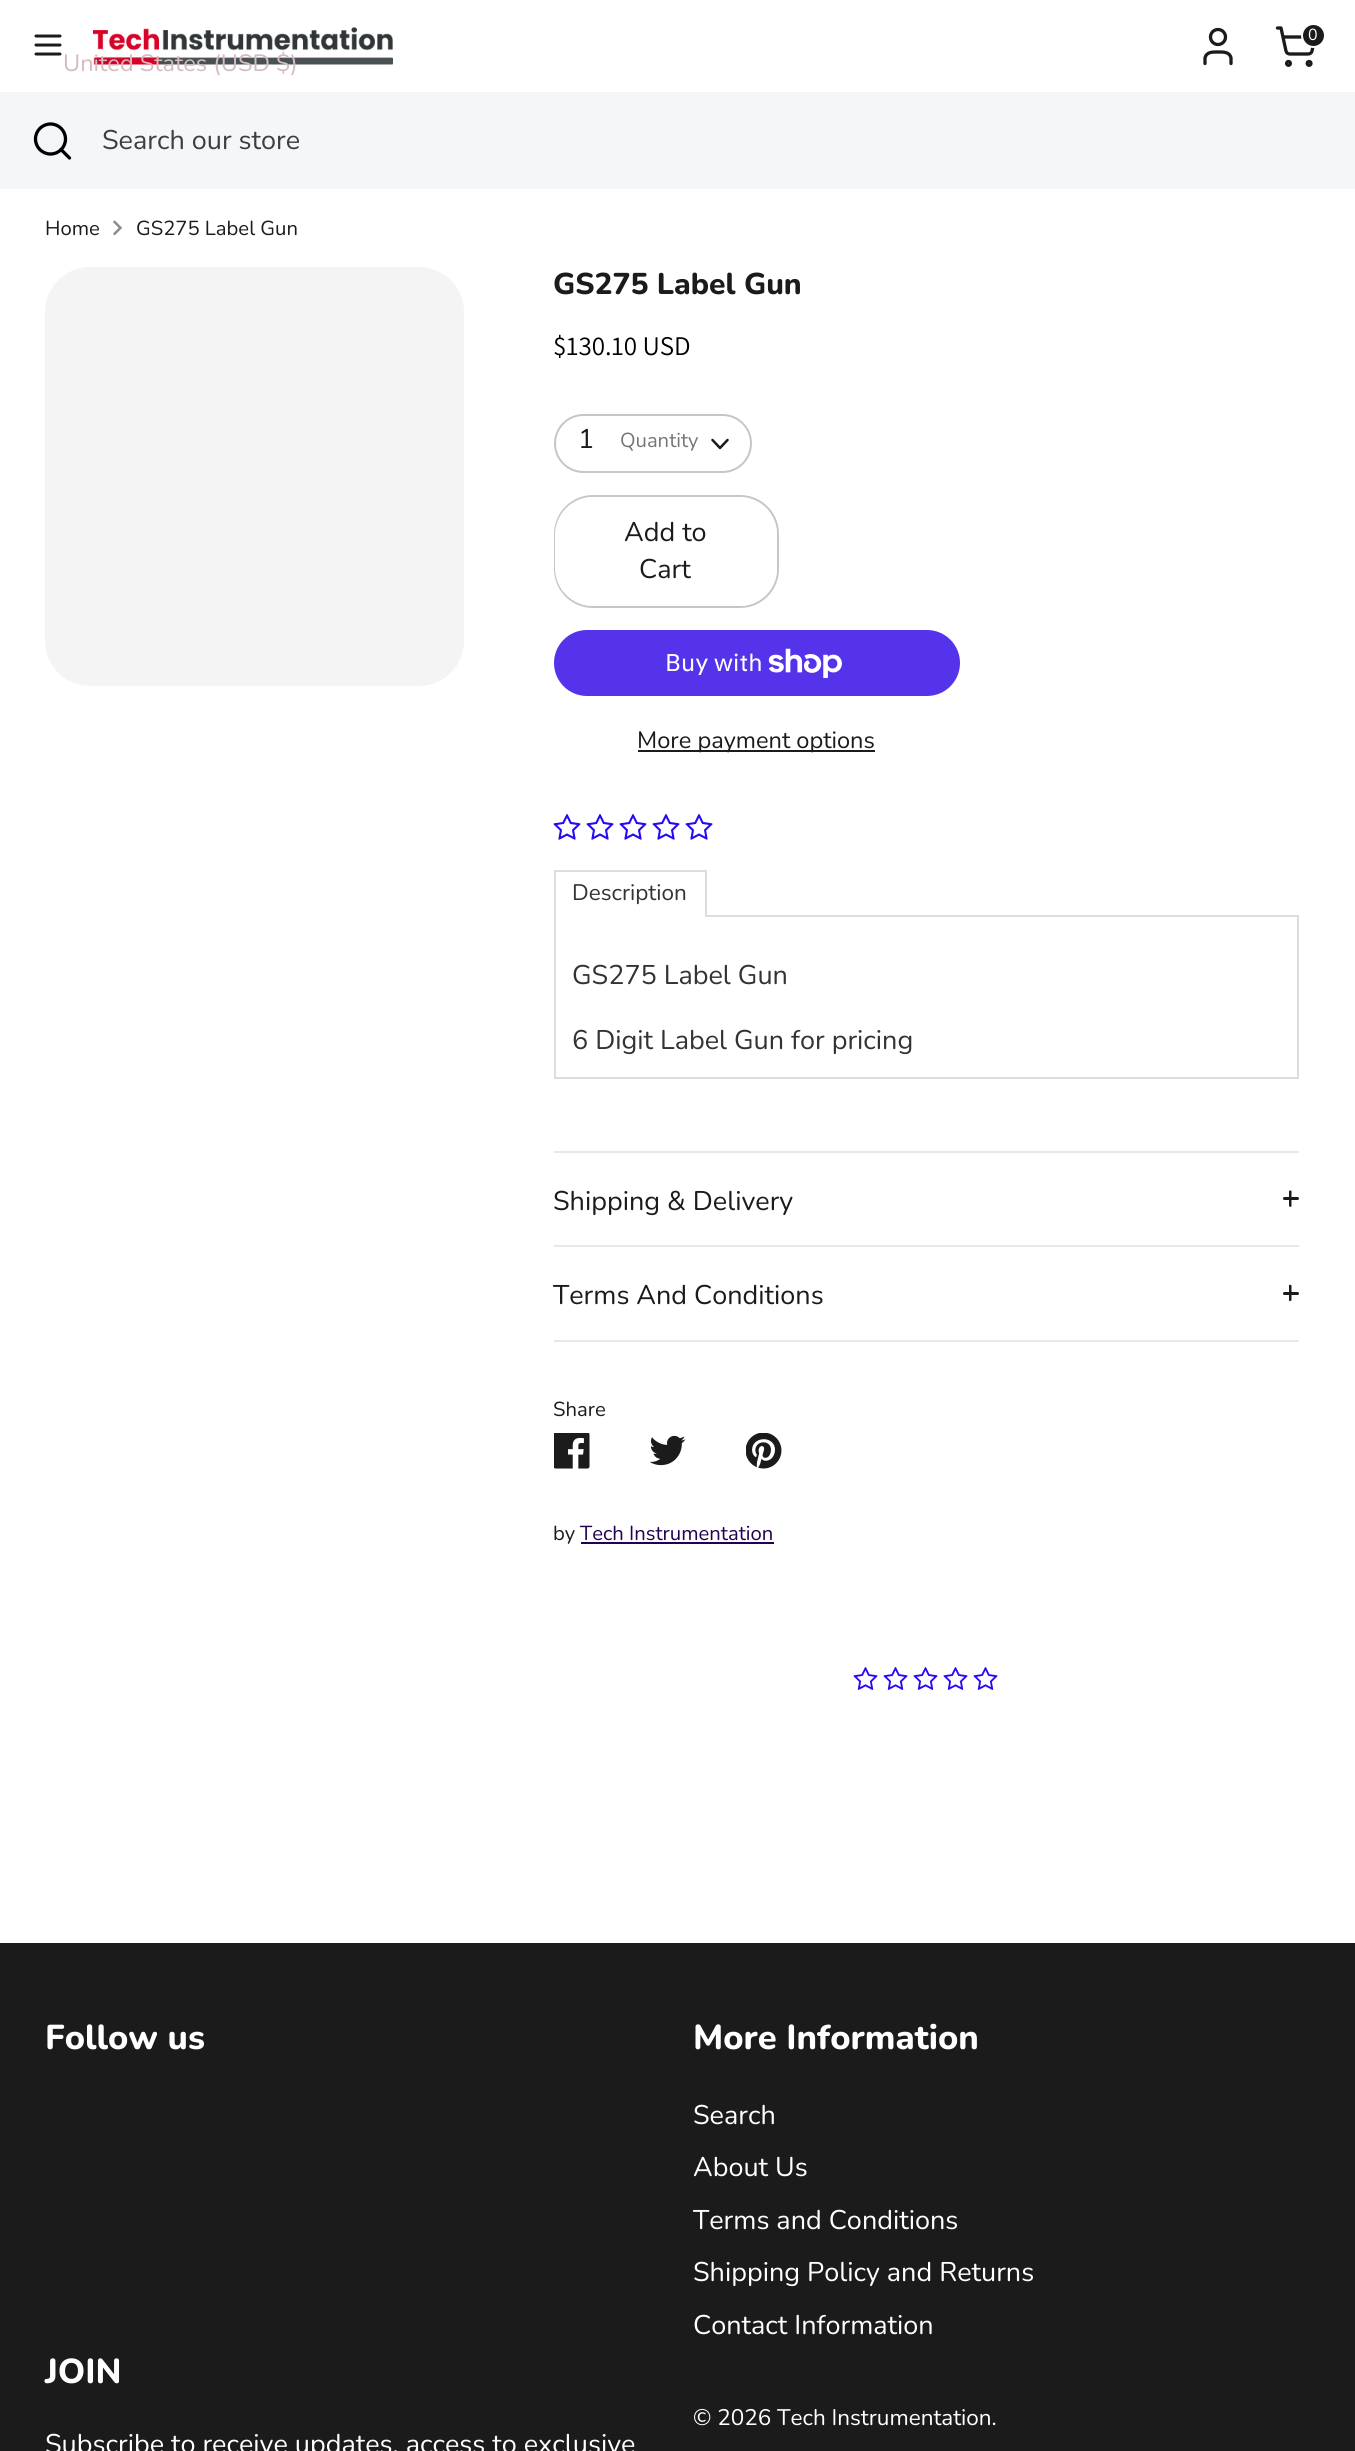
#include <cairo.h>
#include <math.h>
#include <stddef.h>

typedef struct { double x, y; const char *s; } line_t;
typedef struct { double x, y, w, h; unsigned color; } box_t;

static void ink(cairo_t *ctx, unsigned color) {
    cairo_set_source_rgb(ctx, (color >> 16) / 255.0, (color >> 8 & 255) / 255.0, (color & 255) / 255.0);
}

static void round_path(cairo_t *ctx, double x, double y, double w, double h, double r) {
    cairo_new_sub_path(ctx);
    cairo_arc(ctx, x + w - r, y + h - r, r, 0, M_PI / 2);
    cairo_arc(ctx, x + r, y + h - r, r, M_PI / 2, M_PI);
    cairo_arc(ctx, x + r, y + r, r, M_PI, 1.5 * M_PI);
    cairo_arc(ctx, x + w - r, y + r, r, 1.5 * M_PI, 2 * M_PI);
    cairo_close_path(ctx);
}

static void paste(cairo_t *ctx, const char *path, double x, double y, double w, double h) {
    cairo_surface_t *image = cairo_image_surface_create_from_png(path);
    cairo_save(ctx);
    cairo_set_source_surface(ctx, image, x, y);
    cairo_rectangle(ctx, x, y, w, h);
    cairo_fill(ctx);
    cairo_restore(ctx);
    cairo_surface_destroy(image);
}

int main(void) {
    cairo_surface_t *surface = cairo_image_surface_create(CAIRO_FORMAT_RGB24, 1355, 2451);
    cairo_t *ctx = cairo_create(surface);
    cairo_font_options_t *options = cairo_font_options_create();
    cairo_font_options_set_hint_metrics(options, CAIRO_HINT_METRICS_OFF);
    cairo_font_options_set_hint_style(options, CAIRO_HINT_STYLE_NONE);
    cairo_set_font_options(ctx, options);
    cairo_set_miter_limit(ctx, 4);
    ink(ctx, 0xFFFFFF);
    cairo_paint(ctx);
    cairo_new_path(ctx);
    cairo_move_to(ctx, 36, 45);
    cairo_line_to(ctx, 60, 45);
    cairo_move_to(ctx, 36, 36);
    cairo_line_to(ctx, 60, 36);
    cairo_move_to(ctx, 36, 54);
    cairo_line_to(ctx, 60, 54);
    ink(ctx, 0x1C1B1B);
    cairo_set_line_width(ctx, 3);
    cairo_set_line_cap(ctx, CAIRO_LINE_CAP_ROUND);
    cairo_set_line_join(ctx, CAIRO_LINE_JOIN_ROUND);
    cairo_stroke(ctx);
    paste(ctx, "media/1.png", 93, 27, 300, 38);
    cairo_new_path(ctx);
    cairo_move_to(ctx, 1231, 63.5);
    cairo_line_to(ctx, 1231, 58);
    cairo_curve_to(ctx, 1229.5, 51.5, 1223, 52, 1218, 52);
    cairo_curve_to(ctx, 1213, 52, 1206.5, 51.5, 1205, 58);
    cairo_line_to(ctx, 1205, 63.5);
    cairo_set_line_width(ctx, 3.3);
    cairo_stroke(ctx);
    cairo_arc(ctx, 1218, 37, 7.5, 0, 2 * M_PI);
    cairo_set_line_cap(ctx, CAIRO_LINE_CAP_BUTT);
    cairo_set_line_join(ctx, CAIRO_LINE_JOIN_MITER);
    cairo_stroke(ctx);
    cairo_arc(ctx, 1288.5, 63.4, 1.9, 0, 2 * M_PI);
    cairo_stroke(ctx);
    cairo_arc(ctx, 1309.1, 63.4, 1.9, 0, 2 * M_PI);
    cairo_stroke(ctx);
    cairo_new_path(ctx);
    cairo_move_to(ctx, 1277.5, 28);
    cairo_line_to(ctx, 1281, 28);
    cairo_line_to(ctx, 1286, 51);
    cairo_curve_to(ctx, 1286.5, 53, 1288, 54, 1290, 54);
    cairo_line_to(ctx, 1308, 54);
    cairo_curve_to(ctx, 1310, 54, 1311.5, 53, 1312, 51);
    cairo_line_to(ctx, 1315, 37);
    cairo_line_to(ctx, 1283, 37);
    cairo_set_line_cap(ctx, CAIRO_LINE_CAP_ROUND);
    cairo_set_line_join(ctx, CAIRO_LINE_JOIN_ROUND);
    cairo_stroke(ctx);
    cairo_arc(ctx, 1313.5, 35.5, 11.5, 0, 2 * M_PI);
    cairo_fill_preserve(ctx);
    ink(ctx, 0xFFFFFF);
    cairo_set_line_width(ctx, 2);
    cairo_set_line_cap(ctx, CAIRO_LINE_CAP_BUTT);
    cairo_set_line_join(ctx, CAIRO_LINE_JOIN_MITER);
    cairo_stroke(ctx);
    cairo_select_font_face(ctx, "Nunito", CAIRO_FONT_SLANT_NORMAL, CAIRO_FONT_WEIGHT_NORMAL);
    cairo_set_font_size(ctx, 16);
    cairo_move_to(ctx, 1308, 40);
    cairo_show_text(ctx, "0");
    cairo_set_font_size(ctx, 23.6);
    ink(ctx, 0xD4BBC1);
    cairo_move_to(ctx, 63, 71);
    cairo_show_text(ctx, "United States (USD $)");
    ink(ctx, 0xF4F6F8);
    cairo_rectangle(ctx, 0, 92, 1355, 97);
    cairo_fill(ctx);
    cairo_arc(ctx, 50.5, 139, 15, 0, 2 * M_PI);
    ink(ctx, 0x000000);
    cairo_set_line_width(ctx, 3.3);
    cairo_stroke(ctx);
    cairo_new_path(ctx);
    cairo_move_to(ctx, 69.5, 158);
    cairo_line_to(ctx, 61, 149.5);
    cairo_set_line_cap(ctx, CAIRO_LINE_CAP_ROUND);
    cairo_set_line_join(ctx, CAIRO_LINE_JOIN_ROUND);
    cairo_stroke(ctx);
    cairo_set_font_size(ctx, 27);
    ink(ctx, 0x3D3E3E);
    cairo_move_to(ctx, 102, 149);
    cairo_show_text(ctx, "Search our store");
    cairo_set_font_size(ctx, 20.25);
    ink(ctx, 0x1C1B1B);
    cairo_move_to(ctx, 45, 235);
    cairo_show_text(ctx, "Home");
    paste(ctx, "media/2.png", 113, 220, 10, 16);
    cairo_move_to(ctx, 136, 235);
    cairo_show_text(ctx, "GS275 Label Gun");
    ink(ctx, 0xF4F4F4);
    round_path(ctx, 45, 267, 419, 419, 45);
    cairo_fill(ctx);
    cairo_select_font_face(ctx, "Nunito ExtraBold", CAIRO_FONT_SLANT_NORMAL, CAIRO_FONT_WEIGHT_NORMAL);
    cairo_set_font_size(ctx, 30);
    ink(ctx, 0x1C1B1B);
    cairo_move_to(ctx, 553, 294);
    cairo_show_text(ctx, "GS275 Label Gun");
    cairo_select_font_face(ctx, "Assistant", CAIRO_FONT_SLANT_NORMAL, CAIRO_FONT_WEIGHT_NORMAL);
    cairo_set_font_size(ctx, 27);
    ink(ctx, 0x000001);
    cairo_move_to(ctx, 553, 355);
    cairo_show_text(ctx, "$130.10 USD");
    round_path(ctx, 555, 415, 196, 57, 28.5);
    ink(ctx, 0xC6C6C6);
    cairo_set_line_width(ctx, 2);
    cairo_set_line_cap(ctx, CAIRO_LINE_CAP_BUTT);
    cairo_set_line_join(ctx, CAIRO_LINE_JOIN_MITER);
    cairo_stroke(ctx);
    cairo_select_font_face(ctx, "Nunito", CAIRO_FONT_SLANT_NORMAL, CAIRO_FONT_WEIGHT_NORMAL);
    ink(ctx, 0x1C1B1B);
    cairo_move_to(ctx, 578, 448);
    cairo_show_text(ctx, "1");
    cairo_new_path(ctx);
    cairo_move_to(ctx, 712.5, 440);
    cairo_line_to(ctx, 720, 448);
    cairo_line_to(ctx, 727.5, 440);
    cairo_set_line_width(ctx, 2.5);
    cairo_set_line_cap(ctx, CAIRO_LINE_CAP_ROUND);
    cairo_set_line_join(ctx, CAIRO_LINE_JOIN_ROUND);
    cairo_stroke(ctx);
    cairo_set_font_size(ctx, 20.25);
    ink(ctx, 0x777676);
    cairo_move_to(ctx, 620, 447);
    cairo_show_text(ctx, "Quantity");
    round_path(ctx, 555, 496, 223, 111, 38);
    ink(ctx, 0xC6C6C6);
    cairo_set_line_width(ctx, 2);
    cairo_set_line_cap(ctx, CAIRO_LINE_CAP_BUTT);
    cairo_set_line_join(ctx, CAIRO_LINE_JOIN_MITER);
    cairo_stroke(ctx);
    ink(ctx, 0xFFFFFF);
    round_path(ctx, 555, 497, 222, 109, 38);
    cairo_fill(ctx);
    cairo_set_font_size(ctx, 27);
    ink(ctx, 0x1C1B1B);
    cairo_move_to(ctx, 624, 541);
    cairo_show_text(ctx, "Add to");
    cairo_move_to(ctx, 639, 578);
    cairo_show_text(ctx, "Cart");
    ink(ctx, 0x5433EB);
    round_path(ctx, 554, 630, 406, 66, 33);
    cairo_fill(ctx);
    cairo_select_font_face(ctx, "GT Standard", CAIRO_FONT_SLANT_NORMAL, CAIRO_FONT_WEIGHT_NORMAL);
    cairo_set_font_size(ctx, 24);
    ink(ctx, 0xFFFFFF);
    cairo_move_to(ctx, 665, 671);
    cairo_show_text(ctx, "Buy with");
    paste(ctx, "media/3.png", 768, 648, 74, 30);
    ink(ctx, 0x1C1B1B);
    cairo_rectangle(ctx, 638, 750, 237, 2);
    cairo_fill(ctx);
    cairo_select_font_face(ctx, "Nunito", CAIRO_FONT_SLANT_NORMAL, CAIRO_FONT_WEIGHT_NORMAL);
    cairo_set_font_size(ctx, 23.6);
    cairo_move_to(ctx, 637, 748);
    cairo_show_text(ctx, "More payment options");
    paste(ctx, "media/4.png", 553, 814, 28, 26);
    paste(ctx, "media/4.png", 586, 814, 28, 26);
    paste(ctx, "media/4.png", 619, 814, 28, 26);
    paste(ctx, "media/4.png", 652, 814, 28, 26);
    paste(ctx, "media/4.png", 685, 814, 28, 26);
    cairo_rectangle(ctx, 555, 916, 743, 162);
    ink(ctx, 0xDDDDDD);
    cairo_stroke(ctx);
    {
        static const box_t items[] = {
            {556, 915, 149, 2, 0xFFFFFF},
            {554, 870, 153, 2, 0xDDDDDD},
            {705, 870, 2, 47, 0xDDDDDD},
            {554, 870, 2, 47, 0xDDDDDD},
        };
        for (size_t i = 0; i < sizeof items / sizeof *items; i++) {
            ink(ctx, items[i].color);
            cairo_rectangle(ctx, items[i].x, items[i].y, items[i].w, items[i].h);
            cairo_fill(ctx);
        }
    }
    cairo_set_font_size(ctx, 22.5);
    ink(ctx, 0x333333);
    cairo_move_to(ctx, 572, 900);
    cairo_show_text(ctx, "Description");
    cairo_set_font_size(ctx, 27);
    cairo_move_to(ctx, 572, 984);
    cairo_show_text(ctx, "GS275 Label Gun");
    cairo_move_to(ctx, 572, 1049);
    cairo_show_text(ctx, "6 Digit Label Gun for pricing");
    ink(ctx, 0xE8E8E8);
    cairo_rectangle(ctx, 554, 1151, 745, 2);
    cairo_fill(ctx);
    cairo_rectangle(ctx, 554, 1245, 745, 2);
    cairo_fill(ctx);
    ink(ctx, 0x1C1B1B);
    cairo_move_to(ctx, 553, 1210);
    cairo_show_text(ctx, "Shipping & Delivery");
    cairo_new_path(ctx);
    cairo_move_to(ctx, 1289, 1205.5);
    cairo_line_to(ctx, 1289, 1191.5);
    cairo_curve_to(ctx, 1289, 1190.5, 1291, 1190, 1291.5, 1191);
    cairo_line_to(ctx, 1291.5, 1206);
    cairo_curve_to(ctx, 1291, 1207.5, 1289, 1207, 1289, 1205.5);
    cairo_close_path(ctx);
    cairo_fill(ctx);
    round_path(ctx, 1283, 1197, 16, 3, 1.5);
    cairo_fill(ctx);
    ink(ctx, 0xE8E8E8);
    cairo_rectangle(ctx, 554, 1340, 745, 2);
    cairo_fill(ctx);
    ink(ctx, 0x1C1B1B);
    cairo_move_to(ctx, 553, 1304);
    cairo_show_text(ctx, "Terms And Conditions");
    cairo_new_path(ctx);
    cairo_move_to(ctx, 1289, 1300);
    cairo_line_to(ctx, 1289, 1285.5);
    cairo_curve_to(ctx, 1289, 1284.5, 1291, 1284.5, 1291.5, 1285.5);
    cairo_line_to(ctx, 1291.5, 1300);
    cairo_curve_to(ctx, 1291, 1301.5, 1289, 1301.5, 1289, 1300);
    cairo_close_path(ctx);
    cairo_fill(ctx);
    round_path(ctx, 1283, 1292, 16, 3, 1.5);
    cairo_fill(ctx);
    cairo_set_font_size(ctx, 20.25);
    cairo_move_to(ctx, 553, 1416);
    cairo_show_text(ctx, "Share");
    paste(ctx, "media/5.png", 554, 1433, 36, 36);
    paste(ctx, "media/6.png", 650, 1435, 36, 31);
    paste(ctx, "media/7.png", 746, 1433, 36, 36);
    cairo_move_to(ctx, 553, 1540);
    cairo_show_text(ctx, "by");
    ink(ctx, 0x230051);
    cairo_move_to(ctx, 580, 1540);
    cairo_show_text(ctx, "Tech Instrumentation");
    cairo_rectangle(ctx, 581, 1542, 193, 2);
    cairo_fill(ctx);
    paste(ctx, "media/8.png", 853, 1667, 25, 23);
    paste(ctx, "media/8.png", 883, 1667, 25, 23);
    paste(ctx, "media/8.png", 913, 1667, 25, 23);
    paste(ctx, "media/8.png", 943, 1667, 25, 23);
    paste(ctx, "media/8.png", 973, 1667, 25, 23);
    ink(ctx, 0x1C1B1B);
    cairo_rectangle(ctx, 0, 1943, 1355, 508);
    cairo_fill(ctx);
    cairo_select_font_face(ctx, "Nunito ExtraBold", CAIRO_FONT_SLANT_NORMAL, CAIRO_FONT_WEIGHT_NORMAL);
    cairo_set_font_size(ctx, 34.5);
    ink(ctx, 0xFFFFFF);
    cairo_move_to(ctx, 45, 2049);
    cairo_show_text(ctx, "Follow us");
    cairo_move_to(ctx, 693, 2049);
    cairo_show_text(ctx, "More Information");
    cairo_select_font_face(ctx, "Nunito", CAIRO_FONT_SLANT_NORMAL, CAIRO_FONT_WEIGHT_NORMAL);
    cairo_set_font_size(ctx, 27);
    {
        static const line_t items[] = {
            {693, 2124, "Search"},
            {693, 2176, "About Us"},
            {693, 2229, "Terms and Conditions"},
            {693, 2281, "Shipping Policy and Returns"},
            {693, 2334, "Contact Information"},
        };
        for (size_t i = 0; i < sizeof items / sizeof *items; i++) {
            cairo_move_to(ctx, items[i].x, items[i].y);
            cairo_show_text(ctx, items[i].s);
        }
    }
    cairo_select_font_face(ctx, "Nunito ExtraBold", CAIRO_FONT_SLANT_NORMAL, CAIRO_FONT_WEIGHT_NORMAL);
    cairo_set_font_size(ctx, 34.5);
    cairo_move_to(ctx, 45, 2383);
    cairo_show_text(ctx, "JOIN");
    cairo_select_font_face(ctx, "Nunito", CAIRO_FONT_SLANT_NORMAL, CAIRO_FONT_WEIGHT_NORMAL);
    cairo_set_font_size(ctx, 27);
    cairo_move_to(ctx, 45, 2453);
    cairo_show_text(ctx, "Subscribe to receive updates, access to exclusive");
    cairo_set_font_size(ctx, 22.5);
    cairo_move_to(ctx, 693, 2425);
    cairo_show_text(ctx, "© 2026 Tech Instrumentation.");
    cairo_surface_write_to_png(surface, "image.png");
    cairo_font_options_destroy(options);
    cairo_destroy(ctx);
    cairo_surface_destroy(surface);
    return 0;
}
